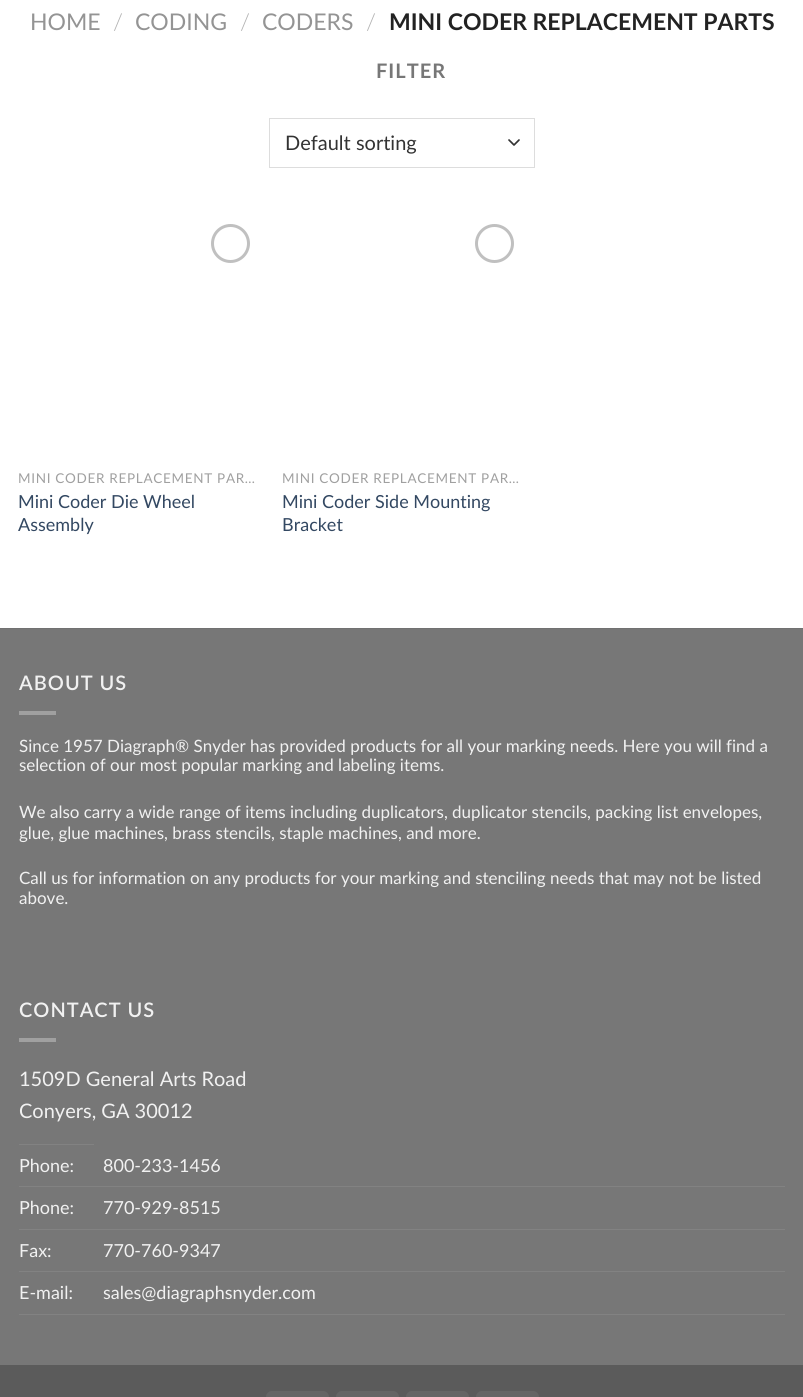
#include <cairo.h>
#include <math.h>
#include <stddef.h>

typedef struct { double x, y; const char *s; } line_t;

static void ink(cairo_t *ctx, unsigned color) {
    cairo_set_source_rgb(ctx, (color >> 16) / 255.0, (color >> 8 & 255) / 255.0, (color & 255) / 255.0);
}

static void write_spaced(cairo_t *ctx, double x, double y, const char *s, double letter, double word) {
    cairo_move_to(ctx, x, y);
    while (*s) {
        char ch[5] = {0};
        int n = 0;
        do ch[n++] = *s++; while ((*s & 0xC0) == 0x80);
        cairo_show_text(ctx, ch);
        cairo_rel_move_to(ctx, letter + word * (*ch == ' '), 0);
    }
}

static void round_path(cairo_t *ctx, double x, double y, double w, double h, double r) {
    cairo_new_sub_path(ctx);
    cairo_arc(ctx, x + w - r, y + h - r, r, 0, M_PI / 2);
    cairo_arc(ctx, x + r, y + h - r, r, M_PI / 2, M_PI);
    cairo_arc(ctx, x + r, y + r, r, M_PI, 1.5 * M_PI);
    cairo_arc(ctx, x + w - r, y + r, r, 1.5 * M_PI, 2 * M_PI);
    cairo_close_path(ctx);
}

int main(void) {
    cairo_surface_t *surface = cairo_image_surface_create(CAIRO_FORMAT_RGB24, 803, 1397);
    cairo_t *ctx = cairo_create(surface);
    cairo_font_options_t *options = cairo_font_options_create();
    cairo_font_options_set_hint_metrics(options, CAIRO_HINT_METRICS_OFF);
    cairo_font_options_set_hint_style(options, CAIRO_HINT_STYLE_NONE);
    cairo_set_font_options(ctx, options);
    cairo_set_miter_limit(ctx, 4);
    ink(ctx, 0xFFFFFF);
    cairo_paint(ctx);
    cairo_select_font_face(ctx, "Lato", CAIRO_FONT_SLANT_NORMAL, CAIRO_FONT_WEIGHT_NORMAL);
    cairo_set_font_size(ctx, 23);
    ink(ctx, 0x949494);
    cairo_move_to(ctx, 30, 30);
    cairo_show_text(ctx, "HOME");
    cairo_select_font_face(ctx, "Lato Light", CAIRO_FONT_SLANT_NORMAL, CAIRO_FONT_WEIGHT_NORMAL);
    ink(ctx, 0xB2B2B2);
    cairo_move_to(ctx, 113, 30);
    cairo_show_text(ctx, "/");
    cairo_select_font_face(ctx, "Lato", CAIRO_FONT_SLANT_NORMAL, CAIRO_FONT_WEIGHT_NORMAL);
    ink(ctx, 0x949494);
    cairo_move_to(ctx, 135, 30);
    cairo_show_text(ctx, "CODING");
    cairo_select_font_face(ctx, "Lato Light", CAIRO_FONT_SLANT_NORMAL, CAIRO_FONT_WEIGHT_NORMAL);
    ink(ctx, 0xB2B2B2);
    cairo_move_to(ctx, 240, 30);
    cairo_show_text(ctx, "/");
    cairo_select_font_face(ctx, "Lato", CAIRO_FONT_SLANT_NORMAL, CAIRO_FONT_WEIGHT_NORMAL);
    ink(ctx, 0x949494);
    cairo_move_to(ctx, 262, 30);
    cairo_show_text(ctx, "CODERS");
    cairo_select_font_face(ctx, "Lato Light", CAIRO_FONT_SLANT_NORMAL, CAIRO_FONT_WEIGHT_NORMAL);
    ink(ctx, 0xB2B2B2);
    cairo_move_to(ctx, 366, 30);
    cairo_show_text(ctx, "/");
    cairo_select_font_face(ctx, "Lato", CAIRO_FONT_SLANT_NORMAL, CAIRO_FONT_WEIGHT_BOLD);
    ink(ctx, 0x222222);
    cairo_move_to(ctx, 389, 30);
    cairo_show_text(ctx, "MINI CODER REPLACEMENT PARTS");
    cairo_set_font_size(ctx, 20);
    ink(ctx, 0x777777);
    write_spaced(ctx, 376, 78, "FILTER", 1, 0);
    cairo_new_path(ctx);
    cairo_move_to(ctx, 509, 140);
    cairo_line_to(ctx, 514, 145);
    cairo_line_to(ctx, 519, 140);
    ink(ctx, 0x333333);
    cairo_set_line_width(ctx, 1.7);
    cairo_set_line_cap(ctx, CAIRO_LINE_CAP_ROUND);
    cairo_set_line_join(ctx, CAIRO_LINE_JOIN_ROUND);
    cairo_stroke(ctx);
    cairo_rectangle(ctx, 269.5, 118.5, 265, 49);
    ink(ctx, 0xDDDDDD);
    cairo_set_line_width(ctx, 1);
    cairo_set_line_cap(ctx, CAIRO_LINE_CAP_BUTT);
    cairo_set_line_join(ctx, CAIRO_LINE_JOIN_MITER);
    cairo_stroke(ctx);
    cairo_select_font_face(ctx, "Lato", CAIRO_FONT_SLANT_NORMAL, CAIRO_FONT_WEIGHT_NORMAL);
    ink(ctx, 0x333333);
    cairo_move_to(ctx, 285, 150);
    cairo_show_text(ctx, "Default sorting");
    cairo_new_path(ctx);
    cairo_arc(ctx, 230.5, 243.5, 18, 0, 2 * M_PI);
    ink(ctx, 0xC0C0C0);
    cairo_set_line_width(ctx, 3);
    cairo_stroke(ctx);
    cairo_set_font_size(ctx, 13.5);
    ink(ctx, 0xA0A0A0);
    write_spaced(ctx, 18, 483, "MINI CODER REPLACEMENT PAR…", 0.7, 0);
    cairo_set_font_size(ctx, 18);
    ink(ctx, 0x334862);
    cairo_move_to(ctx, 18, 508);
    cairo_show_text(ctx, "Mini Coder Die Wheel");
    cairo_move_to(ctx, 18, 531);
    cairo_show_text(ctx, "Assembly");
    cairo_new_path(ctx);
    cairo_arc(ctx, 494.5, 243.5, 18, 0, 2 * M_PI);
    ink(ctx, 0xC0C0C0);
    cairo_stroke(ctx);
    cairo_set_font_size(ctx, 13.5);
    ink(ctx, 0xA0A0A0);
    write_spaced(ctx, 282, 483, "MINI CODER REPLACEMENT PAR…", 0.7, 0);
    cairo_set_font_size(ctx, 18);
    ink(ctx, 0x334862);
    cairo_move_to(ctx, 282, 508);
    cairo_show_text(ctx, "Mini Coder Side Mounting");
    cairo_move_to(ctx, 282, 531);
    cairo_show_text(ctx, "Bracket");
    ink(ctx, 0x777777);
    cairo_rectangle(ctx, 0, 629, 803, 736);
    cairo_fill(ctx);
    ink(ctx, 0x717171);
    cairo_rectangle(ctx, 0, 628, 803, 1);
    cairo_fill(ctx);
    cairo_select_font_face(ctx, "Lato SemiBold", CAIRO_FONT_SLANT_NORMAL, CAIRO_FONT_WEIGHT_NORMAL);
    cairo_set_font_size(ctx, 20);
    ink(ctx, 0xF1F1F1);
    write_spaced(ctx, 19, 690, "ABOUT US", 1, 0);
    ink(ctx, 0xA0A0A0);
    cairo_rectangle(ctx, 19, 711, 37, 4);
    cairo_fill(ctx);
    cairo_select_font_face(ctx, "Lato", CAIRO_FONT_SLANT_NORMAL, CAIRO_FONT_WEIGHT_NORMAL);
    cairo_set_font_size(ctx, 17);
    ink(ctx, 0xF1F1F1);
    {
        static const line_t items[] = {
            {19, 752, "Since 1957 Diagraph® Snyder has provided products for all your marking needs. Here you will find a"},
            {19, 771, "selection of our most popular marking and labeling items."},
            {19, 818, "We also carry a wide range of items including duplicators, duplicator stencils, packing list envelopes,"},
            {19, 839, "glue, glue machines, brass stencils, staple machines, and more."},
            {19, 884, "Call us for information on any products for your marking and stenciling needs that may not be listed"},
            {19, 904, "above."},
        };
        for (size_t i = 0; i < sizeof items / sizeof *items; i++) {
            cairo_move_to(ctx, items[i].x, items[i].y);
            cairo_show_text(ctx, items[i].s);
        }
    }
    cairo_select_font_face(ctx, "Lato SemiBold", CAIRO_FONT_SLANT_NORMAL, CAIRO_FONT_WEIGHT_NORMAL);
    cairo_set_font_size(ctx, 20);
    write_spaced(ctx, 19, 1017, "CONTACT US", 1, 0);
    ink(ctx, 0xA0A0A0);
    cairo_rectangle(ctx, 19, 1038, 37, 4);
    cairo_fill(ctx);
    cairo_select_font_face(ctx, "Lato", CAIRO_FONT_SLANT_NORMAL, CAIRO_FONT_WEIGHT_NORMAL);
    ink(ctx, 0xF1F1F1);
    cairo_move_to(ctx, 19, 1086);
    cairo_show_text(ctx, "1509D General Arts Road");
    cairo_move_to(ctx, 19, 1118);
    cairo_show_text(ctx, "Conyers, GA 30012");
    ink(ctx, 0x828282);
    cairo_rectangle(ctx, 19, 1144, 75, 1);
    cairo_fill(ctx);
    cairo_rectangle(ctx, 19, 1186, 766, 1);
    cairo_fill(ctx);
    cairo_set_font_size(ctx, 18);
    ink(ctx, 0xF1F1F1);
    cairo_move_to(ctx, 19, 1172);
    cairo_show_text(ctx, "Phone:");
    cairo_move_to(ctx, 103, 1172);
    cairo_show_text(ctx, "800-233-1456");
    ink(ctx, 0x828282);
    cairo_rectangle(ctx, 19, 1229, 766, 1);
    cairo_fill(ctx);
    ink(ctx, 0xF1F1F1);
    cairo_move_to(ctx, 19, 1214);
    cairo_show_text(ctx, "Phone:");
    cairo_move_to(ctx, 103, 1214);
    cairo_show_text(ctx, "770-929-8515");
    ink(ctx, 0x828282);
    cairo_rectangle(ctx, 19, 1271, 766, 1);
    cairo_fill(ctx);
    ink(ctx, 0xF1F1F1);
    cairo_move_to(ctx, 19, 1257);
    cairo_show_text(ctx, "Fax:");
    cairo_move_to(ctx, 103, 1257);
    cairo_show_text(ctx, "770-760-9347");
    ink(ctx, 0x828282);
    cairo_rectangle(ctx, 19, 1314, 766, 1);
    cairo_fill(ctx);
    ink(ctx, 0xF1F1F1);
    cairo_move_to(ctx, 19, 1299);
    cairo_show_text(ctx, "E-mail:");
    cairo_move_to(ctx, 103, 1299);
    cairo_show_text(ctx, "sales@diagraphsnyder.com");
    ink(ctx, 0x5B5B5B);
    cairo_rectangle(ctx, 0, 1365, 803, 32);
    cairo_fill(ctx);
    ink(ctx, 0x656565);
    round_path(ctx, 266, 1391, 63, 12, 6);
    cairo_fill(ctx);
    round_path(ctx, 336, 1391, 63, 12, 6);
    cairo_fill(ctx);
    round_path(ctx, 406, 1391, 63, 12, 6);
    cairo_fill(ctx);
    round_path(ctx, 476, 1391, 63, 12, 6);
    cairo_fill(ctx);
    cairo_surface_write_to_png(surface, "image.png");
    cairo_font_options_destroy(options);
    cairo_destroy(ctx);
    cairo_surface_destroy(surface);
    return 0;
}
